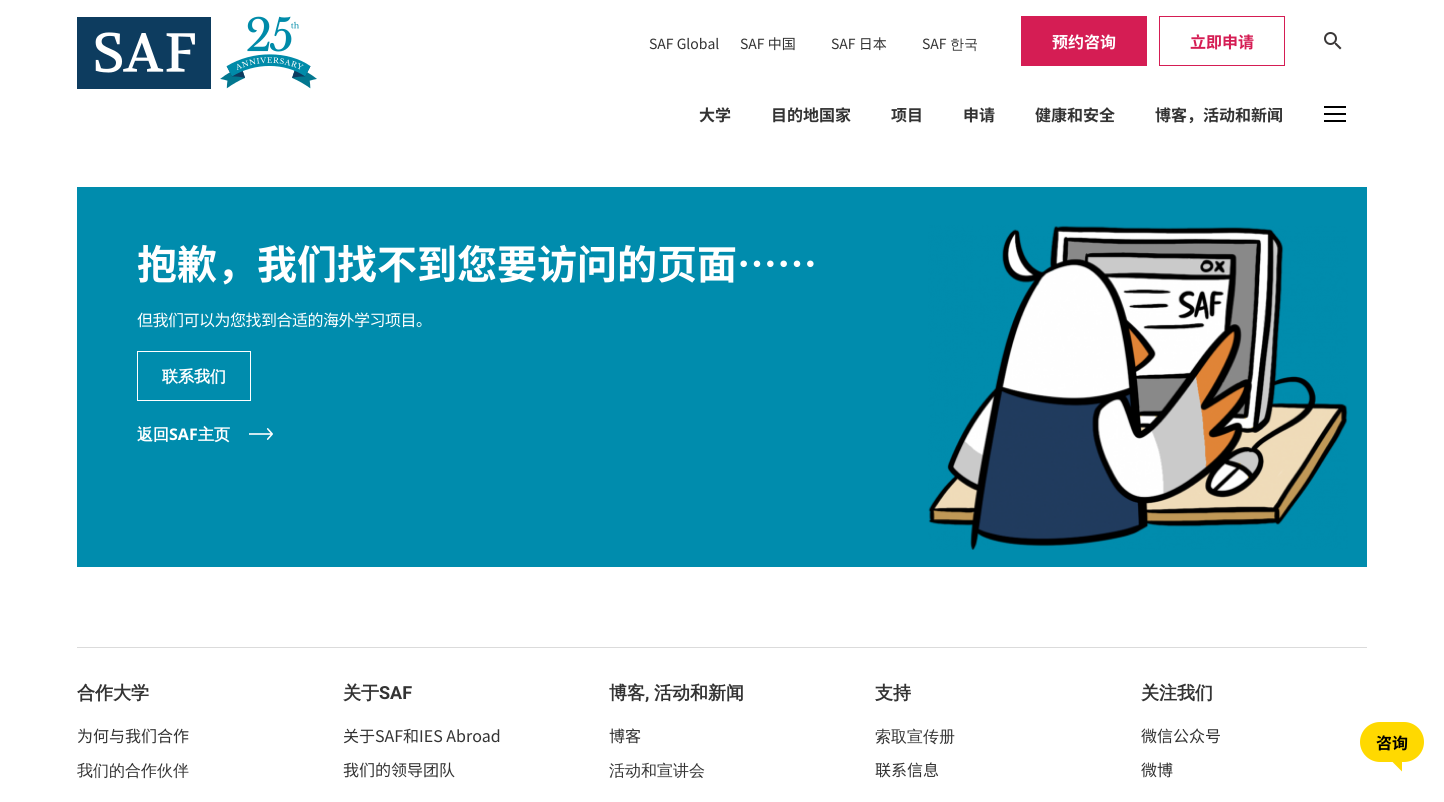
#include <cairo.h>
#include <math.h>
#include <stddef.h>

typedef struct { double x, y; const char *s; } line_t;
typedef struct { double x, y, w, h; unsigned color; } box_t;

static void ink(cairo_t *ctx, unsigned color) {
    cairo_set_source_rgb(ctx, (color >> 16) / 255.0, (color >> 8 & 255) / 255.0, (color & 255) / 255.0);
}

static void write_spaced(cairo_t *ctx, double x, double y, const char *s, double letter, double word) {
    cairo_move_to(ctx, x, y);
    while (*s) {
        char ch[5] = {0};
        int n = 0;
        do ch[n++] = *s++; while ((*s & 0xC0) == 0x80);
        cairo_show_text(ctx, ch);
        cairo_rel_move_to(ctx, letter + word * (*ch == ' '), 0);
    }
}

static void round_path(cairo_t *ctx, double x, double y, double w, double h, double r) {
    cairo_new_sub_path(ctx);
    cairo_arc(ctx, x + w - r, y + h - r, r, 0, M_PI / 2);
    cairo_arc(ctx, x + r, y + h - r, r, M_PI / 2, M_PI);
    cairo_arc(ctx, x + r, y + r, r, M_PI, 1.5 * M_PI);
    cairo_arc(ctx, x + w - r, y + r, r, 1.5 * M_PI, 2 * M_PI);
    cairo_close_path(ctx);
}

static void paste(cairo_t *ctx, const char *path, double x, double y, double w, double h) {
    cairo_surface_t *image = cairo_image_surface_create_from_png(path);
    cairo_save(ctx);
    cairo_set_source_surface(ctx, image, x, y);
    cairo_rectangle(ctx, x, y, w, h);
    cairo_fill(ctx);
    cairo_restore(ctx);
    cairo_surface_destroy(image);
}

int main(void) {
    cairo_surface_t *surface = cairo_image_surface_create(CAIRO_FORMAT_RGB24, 1444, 802);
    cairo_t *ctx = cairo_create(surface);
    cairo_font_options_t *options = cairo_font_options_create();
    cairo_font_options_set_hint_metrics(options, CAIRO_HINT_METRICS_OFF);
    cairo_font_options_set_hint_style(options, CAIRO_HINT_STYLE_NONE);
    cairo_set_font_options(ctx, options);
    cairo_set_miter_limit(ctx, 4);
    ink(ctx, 0xFFFFFF);
    cairo_paint(ctx);
    paste(ctx, "media/1.png", 77, 16, 240, 73);
    cairo_select_font_face(ctx, "Noto Sans SC", CAIRO_FONT_SLANT_NORMAL, CAIRO_FONT_WEIGHT_NORMAL);
    cairo_set_font_size(ctx, 14);
    ink(ctx, 0x333333);
    {
        static const line_t items[] = {
            {649, 49, "SAF Global"},
            {740, 49, "SAF 中国"},
            {831, 49, "SAF 日本"},
            {922, 49, "SAF"},
        };
        for (size_t i = 0; i < sizeof items / sizeof *items; i++) {
            cairo_move_to(ctx, items[i].x, items[i].y);
            cairo_show_text(ctx, items[i].s);
        }
    }
    cairo_select_font_face(ctx, "WenQuanYi Zen Hei Medium", CAIRO_FONT_SLANT_NORMAL, CAIRO_FONT_WEIGHT_NORMAL);
    cairo_move_to(ctx, 950, 49);
    cairo_show_text(ctx, "한국");
    ink(ctx, 0xD51D54);
    cairo_rectangle(ctx, 1021, 16, 126, 50);
    cairo_fill(ctx);
    cairo_select_font_face(ctx, "Noto Sans SC", CAIRO_FONT_SLANT_NORMAL, CAIRO_FONT_WEIGHT_BOLD);
    cairo_set_font_size(ctx, 16);
    ink(ctx, 0xFFFFFF);
    cairo_move_to(ctx, 1052, 48);
    cairo_show_text(ctx, "预约咨询");
    cairo_rectangle(ctx, 1159.5, 16.5, 125, 49);
    ink(ctx, 0xD51D54);
    cairo_set_line_width(ctx, 1);
    cairo_stroke(ctx);
    cairo_move_to(ctx, 1190, 48);
    cairo_show_text(ctx, "立即申请");
    paste(ctx, "media/2.png", 1324, 32, 18, 18);
    ink(ctx, 0x333333);
    {
        static const line_t items[] = {
            {699, 121, "大学"},
            {771, 121, "目的地国家"},
            {891, 121, "项目"},
            {963, 121, "申请"},
            {1035, 121, "健康和安全"},
            {1155, 121, "博客，活动和新闻"},
        };
        for (size_t i = 0; i < sizeof items / sizeof *items; i++) {
            cairo_move_to(ctx, items[i].x, items[i].y);
            cairo_show_text(ctx, items[i].s);
        }
    }
    {
        static const box_t items[] = {
            {1324, 106, 22, 2, 0x000000},
            {1324, 113, 22, 2, 0x000000},
            {1324, 120, 22, 2, 0x000000},
            {77, 187, 1290, 380, 0x008CAD},
        };
        for (size_t i = 0; i < sizeof items / sizeof *items; i++) {
            ink(ctx, items[i].color);
            cairo_rectangle(ctx, items[i].x, items[i].y, items[i].w, items[i].h);
            cairo_fill(ctx);
        }
    }
    cairo_set_font_size(ctx, 40);
    ink(ctx, 0xFFFFFF);
    cairo_move_to(ctx, 137, 279);
    cairo_show_text(ctx, "抱歉，我们找不到您要访问的页面……");
    cairo_select_font_face(ctx, "Noto Sans SC", CAIRO_FONT_SLANT_NORMAL, CAIRO_FONT_WEIGHT_NORMAL);
    cairo_set_font_size(ctx, 16);
    write_spaced(ctx, 137, 326, "但我们可以为您找到合适的海外学习项目。", -0.5, 0);
    cairo_rectangle(ctx, 137.5, 351.5, 113, 49);
    cairo_stroke(ctx);
    cairo_select_font_face(ctx, "WenQuanYi Zen Hei", CAIRO_FONT_SLANT_NORMAL, CAIRO_FONT_WEIGHT_BOLD);
    cairo_move_to(ctx, 162, 382);
    cairo_show_text(ctx, "联系我们");
    paste(ctx, "media/3.png", 249, 428, 24, 12);
    cairo_move_to(ctx, 137, 440);
    cairo_show_text(ctx, "返回");
    cairo_select_font_face(ctx, "Noto Sans", CAIRO_FONT_SLANT_NORMAL, CAIRO_FONT_WEIGHT_BOLD);
    cairo_move_to(ctx, 169, 440);
    cairo_show_text(ctx, "SAF");
    cairo_select_font_face(ctx, "WenQuanYi Zen Hei", CAIRO_FONT_SLANT_NORMAL, CAIRO_FONT_WEIGHT_BOLD);
    cairo_move_to(ctx, 198, 440);
    cairo_show_text(ctx, "主页");
    paste(ctx, "media/4.png", 928, 225, 420, 325);
    ink(ctx, 0xDBDBDB);
    cairo_rectangle(ctx, 77, 647, 1290, 1);
    cairo_fill(ctx);
    cairo_set_font_size(ctx, 18);
    ink(ctx, 0x333333);
    cairo_move_to(ctx, 77, 699);
    cairo_show_text(ctx, "合作大学");
    cairo_select_font_face(ctx, "Noto Sans SC", CAIRO_FONT_SLANT_NORMAL, CAIRO_FONT_WEIGHT_NORMAL);
    cairo_set_font_size(ctx, 16);
    cairo_move_to(ctx, 77, 742);
    cairo_show_text(ctx, "为何与我们合作");
    cairo_select_font_face(ctx, "WenQuanYi Zen Hei Medium", CAIRO_FONT_SLANT_NORMAL, CAIRO_FONT_WEIGHT_NORMAL);
    cairo_move_to(ctx, 77, 776);
    cairo_show_text(ctx, "我们的合作伙伴");
    cairo_select_font_face(ctx, "WenQuanYi Zen Hei", CAIRO_FONT_SLANT_NORMAL, CAIRO_FONT_WEIGHT_BOLD);
    cairo_set_font_size(ctx, 18);
    cairo_move_to(ctx, 343, 699);
    cairo_show_text(ctx, "关于");
    cairo_select_font_face(ctx, "Roboto", CAIRO_FONT_SLANT_NORMAL, CAIRO_FONT_WEIGHT_BOLD);
    cairo_move_to(ctx, 379, 699);
    cairo_show_text(ctx, "SAF");
    cairo_select_font_face(ctx, "Noto Sans SC", CAIRO_FONT_SLANT_NORMAL, CAIRO_FONT_WEIGHT_NORMAL);
    cairo_set_font_size(ctx, 16);
    cairo_move_to(ctx, 343, 742);
    cairo_show_text(ctx, "关于SAF和IES Abroad");
    cairo_move_to(ctx, 343, 776);
    cairo_show_text(ctx, "我们的领导团队");
    cairo_select_font_face(ctx, "WenQuanYi Zen Hei", CAIRO_FONT_SLANT_NORMAL, CAIRO_FONT_WEIGHT_BOLD);
    cairo_set_font_size(ctx, 18);
    cairo_move_to(ctx, 609, 699);
    cairo_show_text(ctx, "博客");
    cairo_select_font_face(ctx, "Roboto", CAIRO_FONT_SLANT_NORMAL, CAIRO_FONT_WEIGHT_BOLD);
    cairo_move_to(ctx, 645, 699);
    cairo_show_text(ctx, ",");
    cairo_select_font_face(ctx, "WenQuanYi Zen Hei", CAIRO_FONT_SLANT_NORMAL, CAIRO_FONT_WEIGHT_BOLD);
    cairo_move_to(ctx, 654, 699);
    cairo_show_text(ctx, "活动和新闻");
    cairo_select_font_face(ctx, "Noto Sans SC", CAIRO_FONT_SLANT_NORMAL, CAIRO_FONT_WEIGHT_NORMAL);
    cairo_set_font_size(ctx, 16);
    cairo_move_to(ctx, 609, 742);
    cairo_show_text(ctx, "博客");
    cairo_select_font_face(ctx, "WenQuanYi Zen Hei Medium", CAIRO_FONT_SLANT_NORMAL, CAIRO_FONT_WEIGHT_NORMAL);
    cairo_move_to(ctx, 609, 776);
    cairo_show_text(ctx, "活动和宣讲会");
    cairo_select_font_face(ctx, "WenQuanYi Zen Hei", CAIRO_FONT_SLANT_NORMAL, CAIRO_FONT_WEIGHT_BOLD);
    cairo_set_font_size(ctx, 18);
    cairo_move_to(ctx, 875, 699);
    cairo_show_text(ctx, "支持");
    cairo_select_font_face(ctx, "WenQuanYi Zen Hei Medium", CAIRO_FONT_SLANT_NORMAL, CAIRO_FONT_WEIGHT_NORMAL);
    cairo_set_font_size(ctx, 16);
    cairo_move_to(ctx, 875, 742);
    cairo_show_text(ctx, "索取宣传册");
    cairo_select_font_face(ctx, "Noto Sans SC", CAIRO_FONT_SLANT_NORMAL, CAIRO_FONT_WEIGHT_NORMAL);
    cairo_move_to(ctx, 875, 776);
    cairo_show_text(ctx, "联系信息");
    cairo_select_font_face(ctx, "WenQuanYi Zen Hei", CAIRO_FONT_SLANT_NORMAL, CAIRO_FONT_WEIGHT_BOLD);
    cairo_set_font_size(ctx, 18);
    cairo_move_to(ctx, 1141, 699);
    cairo_show_text(ctx, "关注我们");
    cairo_select_font_face(ctx, "Noto Sans SC", CAIRO_FONT_SLANT_NORMAL, CAIRO_FONT_WEIGHT_NORMAL);
    cairo_set_font_size(ctx, 16);
    cairo_move_to(ctx, 1141, 742);
    cairo_show_text(ctx, "微信公众号");
    cairo_move_to(ctx, 1141, 776);
    cairo_show_text(ctx, "微博");
    ink(ctx, 0xFFD900);
    round_path(ctx, 1360, 722, 64, 40, 20);
    cairo_fill(ctx);
    cairo_select_font_face(ctx, "Noto Sans SC", CAIRO_FONT_SLANT_NORMAL, CAIRO_FONT_WEIGHT_BOLD);
    ink(ctx, 0x000000);
    cairo_move_to(ctx, 1376, 749);
    cairo_show_text(ctx, "咨询");
    ink(ctx, 0xFFD900);
    cairo_new_path(ctx);
    cairo_move_to(ctx, 1390.5, 760);
    cairo_line_to(ctx, 1402, 748.5);
    cairo_line_to(ctx, 1402, 771.5);
    cairo_close_path(ctx);
    cairo_fill(ctx);
    cairo_surface_write_to_png(surface, "image.png");
    cairo_font_options_destroy(options);
    cairo_destroy(ctx);
    cairo_surface_destroy(surface);
    return 0;
}
